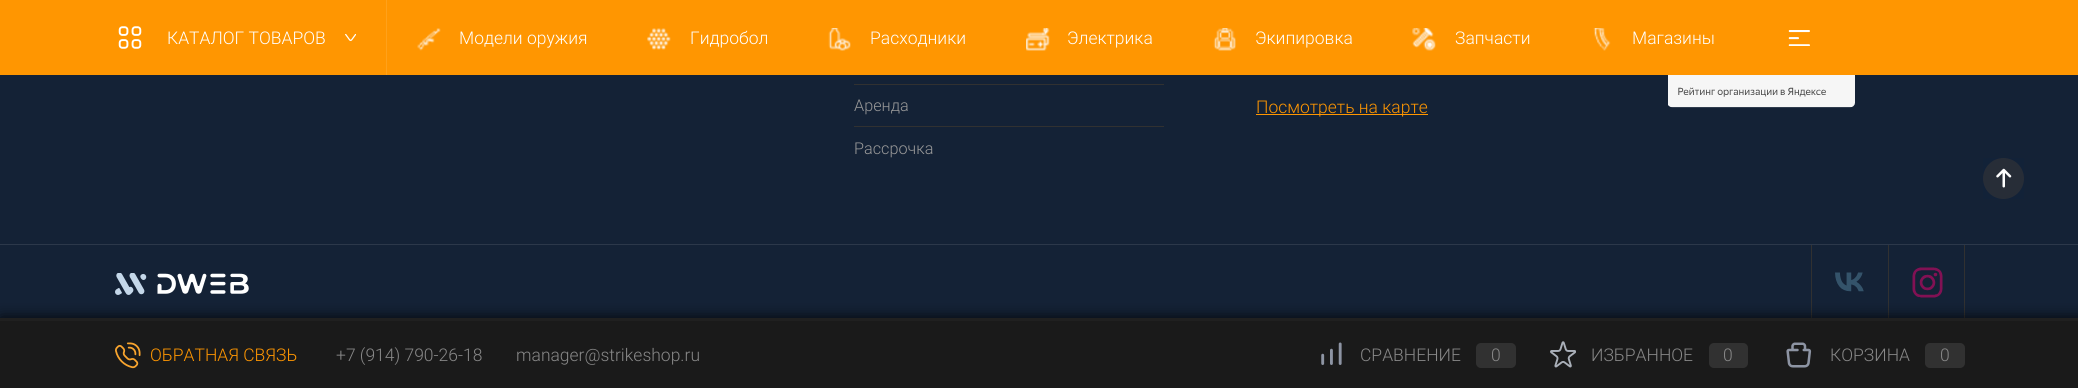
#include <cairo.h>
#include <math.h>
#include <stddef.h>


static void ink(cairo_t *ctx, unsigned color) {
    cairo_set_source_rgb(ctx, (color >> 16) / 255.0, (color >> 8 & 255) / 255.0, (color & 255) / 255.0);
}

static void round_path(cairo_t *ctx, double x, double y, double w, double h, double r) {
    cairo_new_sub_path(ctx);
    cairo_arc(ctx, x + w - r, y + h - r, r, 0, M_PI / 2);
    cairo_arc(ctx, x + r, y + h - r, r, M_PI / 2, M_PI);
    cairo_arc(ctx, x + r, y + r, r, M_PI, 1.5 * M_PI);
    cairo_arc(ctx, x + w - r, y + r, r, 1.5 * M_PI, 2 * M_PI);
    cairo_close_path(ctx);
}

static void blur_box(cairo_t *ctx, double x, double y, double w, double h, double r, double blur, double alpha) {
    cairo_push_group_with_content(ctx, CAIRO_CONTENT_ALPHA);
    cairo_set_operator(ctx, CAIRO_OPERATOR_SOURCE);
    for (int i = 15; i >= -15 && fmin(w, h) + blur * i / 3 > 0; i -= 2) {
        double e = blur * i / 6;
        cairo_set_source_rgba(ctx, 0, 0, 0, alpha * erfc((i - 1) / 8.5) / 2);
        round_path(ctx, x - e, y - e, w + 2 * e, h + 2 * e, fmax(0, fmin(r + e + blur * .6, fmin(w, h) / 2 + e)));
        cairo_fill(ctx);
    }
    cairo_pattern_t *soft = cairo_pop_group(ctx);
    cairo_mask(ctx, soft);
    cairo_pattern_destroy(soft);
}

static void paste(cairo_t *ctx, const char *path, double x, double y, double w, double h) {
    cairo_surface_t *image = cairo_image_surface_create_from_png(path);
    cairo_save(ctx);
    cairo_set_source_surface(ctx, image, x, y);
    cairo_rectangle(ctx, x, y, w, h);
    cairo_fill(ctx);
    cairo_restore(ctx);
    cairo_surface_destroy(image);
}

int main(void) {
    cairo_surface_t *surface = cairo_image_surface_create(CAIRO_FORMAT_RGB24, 2078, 388);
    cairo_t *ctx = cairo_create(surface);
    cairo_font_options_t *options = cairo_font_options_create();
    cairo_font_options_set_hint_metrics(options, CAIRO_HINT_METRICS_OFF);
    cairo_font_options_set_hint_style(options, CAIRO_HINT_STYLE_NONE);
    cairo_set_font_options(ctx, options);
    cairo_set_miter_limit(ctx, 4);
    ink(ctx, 0x142236);
    cairo_paint(ctx);
    ink(ctx, 0xFF9601);
    cairo_rectangle(ctx, 0, 0, 2078, 75);
    cairo_fill(ctx);
    paste(ctx, "media/1.png", 118, 26, 24, 23);
    cairo_select_font_face(ctx, "Roboto Light", CAIRO_FONT_SLANT_NORMAL, CAIRO_FONT_WEIGHT_NORMAL);
    cairo_set_font_size(ctx, 17.5);
    ink(ctx, 0xFFFFFF);
    cairo_move_to(ctx, 167, 44);
    cairo_show_text(ctx, "КАТАЛОГ ТОВАРОВ");
    paste(ctx, "media/2.png", 345, 34, 11, 7);
    ink(ctx, 0xFFA11A);
    cairo_rectangle(ctx, 386, 0, 1, 75);
    cairo_fill(ctx);
    paste(ctx, "media/3.png", 417, 28, 24, 23);
    ink(ctx, 0xFFFFFF);
    cairo_move_to(ctx, 459, 44);
    cairo_show_text(ctx, "Модели оружия");
    paste(ctx, "media/4.png", 647, 28, 24, 22);
    cairo_move_to(ctx, 690, 44);
    cairo_show_text(ctx, "Гидробол");
    paste(ctx, "media/5.png", 828, 28, 23, 23);
    cairo_move_to(ctx, 870, 44);
    cairo_show_text(ctx, "Расходники");
    paste(ctx, "media/6.png", 1026, 28, 24, 23);
    cairo_move_to(ctx, 1067, 44);
    cairo_show_text(ctx, "Электрика");
    paste(ctx, "media/7.png", 1213, 28, 23, 23);
    cairo_move_to(ctx, 1255, 44);
    cairo_show_text(ctx, "Экипировка");
    paste(ctx, "media/8.png", 1412, 28, 24, 23);
    cairo_move_to(ctx, 1455, 44);
    cairo_show_text(ctx, "Запчасти");
    paste(ctx, "media/9.png", 1593, 28, 18, 23);
    cairo_move_to(ctx, 1632, 44);
    cairo_show_text(ctx, "Магазины");
    paste(ctx, "media/10.png", 1788, 30, 22, 16);
    ink(ctx, 0x313131);
    cairo_rectangle(ctx, 854, 84, 310, 1);
    cairo_fill(ctx);
    cairo_set_font_size(ctx, 16.25);
    ink(ctx, 0x999999);
    cairo_move_to(ctx, 854, 111);
    cairo_show_text(ctx, "Аренда");
    ink(ctx, 0x313131);
    cairo_rectangle(ctx, 854, 126, 310, 1);
    cairo_fill(ctx);
    ink(ctx, 0x999999);
    cairo_move_to(ctx, 854, 154);
    cairo_show_text(ctx, "Рассрочка");
    ink(ctx, 0xFF9601);
    cairo_rectangle(ctx, 1256, 114, 172, 1);
    cairo_fill(ctx);
    cairo_set_font_size(ctx, 17.5);
    cairo_move_to(ctx, 1256, 113);
    cairo_show_text(ctx, "Посмотреть на карте");
    paste(ctx, "media/11.png", 1668, 75, 187, 33);
    ink(ctx, 0x2C384A);
    cairo_rectangle(ctx, 0, 244, 2078, 1);
    cairo_fill(ctx);
    paste(ctx, "media/12.png", 115, 273, 134, 22);
    ink(ctx, 0x313131);
    cairo_rectangle(ctx, 1888, 245, 1, 75);
    cairo_fill(ctx);
    cairo_rectangle(ctx, 1811, 245, 1, 75);
    cairo_fill(ctx);
    paste(ctx, "media/13.png", 1835, 272, 29, 20);
    cairo_rectangle(ctx, 1964, 245, 1, 75);
    cairo_fill(ctx);
    paste(ctx, "media/14.png", 1912, 267, 31, 31);
    ink(ctx, 0x000000);
    blur_box(ctx, 1, 319, 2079, 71, 0, 7.5, 1);
    ink(ctx, 0x1A1A1A);
    cairo_rectangle(ctx, 0, 321, 2078, 67);
    cairo_fill(ctx);
    ink(ctx, 0x202020);
    cairo_rectangle(ctx, 0, 318, 2078, 3);
    cairo_fill(ctx);
    paste(ctx, "media/15.png", 115, 342, 26, 27);
    ink(ctx, 0xFF9601);
    cairo_move_to(ctx, 150, 361);
    cairo_show_text(ctx, "ОБРАТНАЯ СВЯЗЬ");
    ink(ctx, 0x888888);
    cairo_move_to(ctx, 336, 361);
    cairo_show_text(ctx, "+7 (914) 790-26-18");
    cairo_move_to(ctx, 516, 361);
    cairo_show_text(ctx, "manager@strikeshop.ru");
    paste(ctx, "media/16.png", 1321, 342, 21, 23);
    cairo_move_to(ctx, 1360, 361);
    cairo_show_text(ctx, "СРАВНЕНИЕ");
    ink(ctx, 0x313131);
    round_path(ctx, 1476, 343, 40, 25, 5);
    cairo_fill(ctx);
    ink(ctx, 0x888888);
    cairo_move_to(ctx, 1491, 361);
    cairo_show_text(ctx, "0");
    paste(ctx, "media/17.png", 1550, 341, 26, 27);
    cairo_move_to(ctx, 1591, 361);
    cairo_show_text(ctx, "ИЗБРАННОЕ");
    ink(ctx, 0x313131);
    round_path(ctx, 1709, 343, 39, 25, 5);
    cairo_fill(ctx);
    ink(ctx, 0x888888);
    cairo_move_to(ctx, 1723, 361);
    cairo_show_text(ctx, "0");
    paste(ctx, "media/18.png", 1786, 342, 26, 26);
    cairo_move_to(ctx, 1830, 361);
    cairo_show_text(ctx, "КОРЗИНА");
    ink(ctx, 0x313131);
    round_path(ctx, 1925, 343, 40, 25, 5);
    cairo_fill(ctx);
    ink(ctx, 0x888888);
    cairo_move_to(ctx, 1940, 361);
    cairo_show_text(ctx, "0");
    paste(ctx, "media/19.png", 1983, 158, 41, 41);
    cairo_surface_write_to_png(surface, "image.png");
    cairo_font_options_destroy(options);
    cairo_destroy(ctx);
    cairo_surface_destroy(surface);
    return 0;
}
